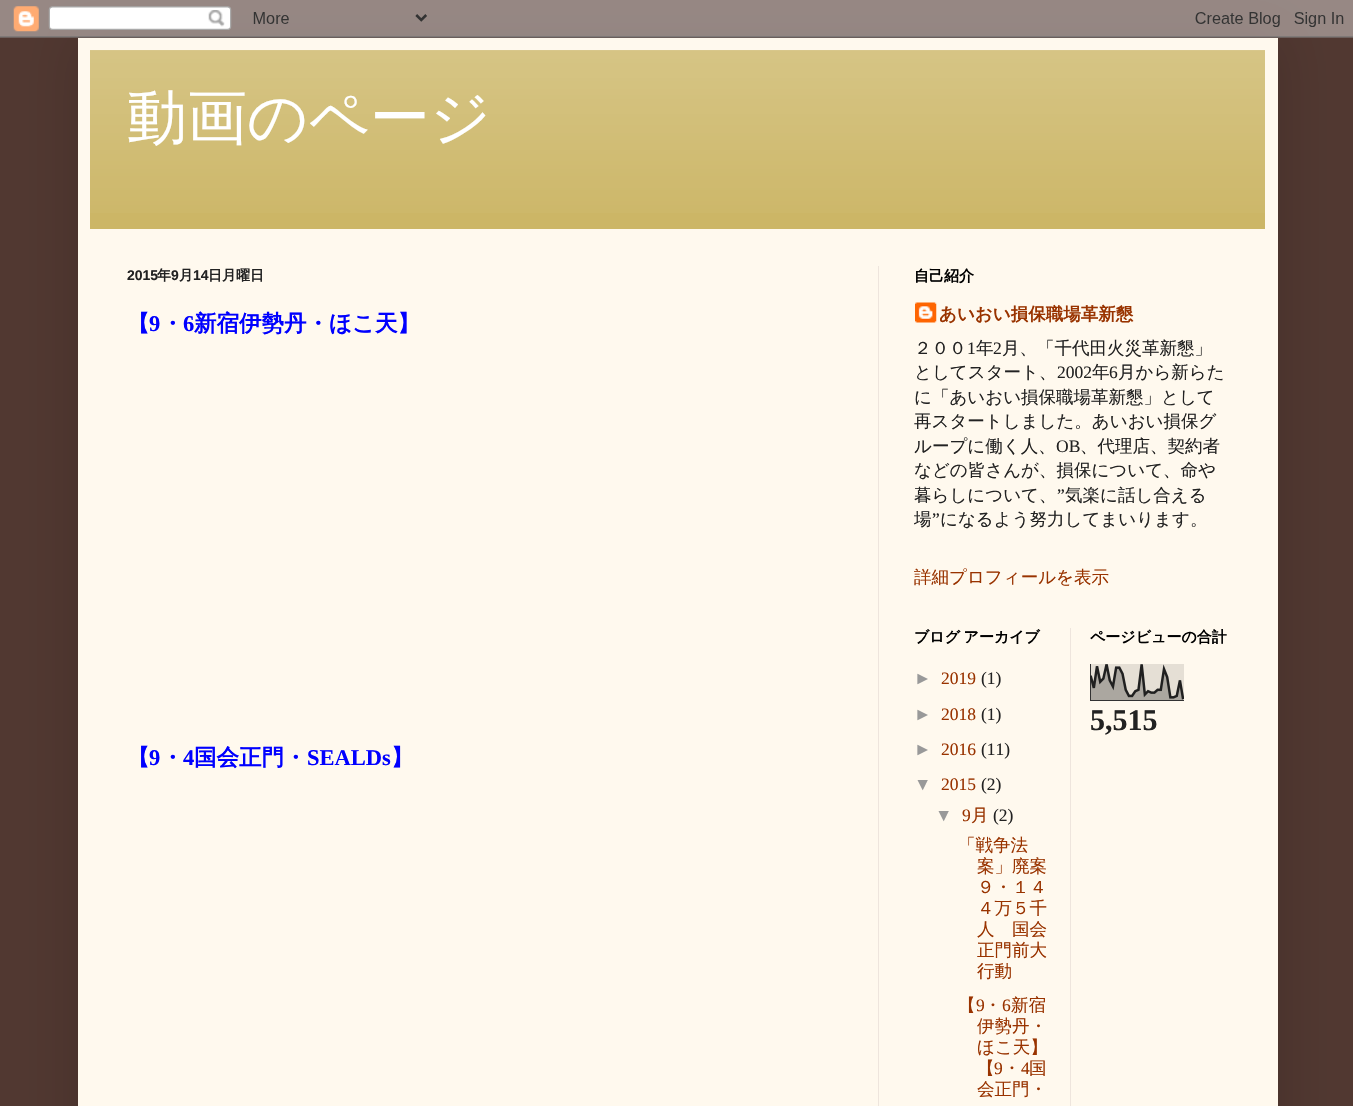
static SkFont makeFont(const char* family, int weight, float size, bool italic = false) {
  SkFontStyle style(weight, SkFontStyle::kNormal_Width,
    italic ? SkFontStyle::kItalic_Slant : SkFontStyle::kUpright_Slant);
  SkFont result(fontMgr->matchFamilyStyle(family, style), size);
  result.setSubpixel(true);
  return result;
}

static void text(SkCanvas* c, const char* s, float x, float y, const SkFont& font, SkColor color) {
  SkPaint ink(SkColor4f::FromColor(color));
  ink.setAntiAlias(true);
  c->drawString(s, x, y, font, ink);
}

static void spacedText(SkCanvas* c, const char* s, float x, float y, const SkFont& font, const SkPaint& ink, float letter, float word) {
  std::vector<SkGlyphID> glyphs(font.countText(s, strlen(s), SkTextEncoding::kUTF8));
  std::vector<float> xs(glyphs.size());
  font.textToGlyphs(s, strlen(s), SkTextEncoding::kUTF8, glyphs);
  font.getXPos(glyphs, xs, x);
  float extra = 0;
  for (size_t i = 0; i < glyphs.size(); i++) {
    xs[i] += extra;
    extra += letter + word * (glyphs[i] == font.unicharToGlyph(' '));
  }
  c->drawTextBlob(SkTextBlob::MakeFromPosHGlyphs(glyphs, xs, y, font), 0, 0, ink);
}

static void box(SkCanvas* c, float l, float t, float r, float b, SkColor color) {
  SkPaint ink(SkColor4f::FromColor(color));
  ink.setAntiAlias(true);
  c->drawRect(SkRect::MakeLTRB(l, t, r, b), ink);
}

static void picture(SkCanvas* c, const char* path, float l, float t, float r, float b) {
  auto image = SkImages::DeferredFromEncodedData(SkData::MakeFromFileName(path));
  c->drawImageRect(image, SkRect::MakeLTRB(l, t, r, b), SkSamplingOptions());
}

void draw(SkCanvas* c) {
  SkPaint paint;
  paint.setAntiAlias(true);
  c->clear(0xff513831);
  paint.setColor(0x26000000);
  paint.setMaskFilter(SkMaskFilter::MakeBlur(kNormal_SkBlurStyle, 25));
  c->drawRect(SkRect::MakeLTRB(78, 38, 1278, 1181), paint);
  paint.setMaskFilter(nullptr);
  picture(c, "img_01.png", 0, 0, 1353, 38);
  box(c, 78, 38, 1278, 1106, 0xfffff9ee);
  box(c, 90, 50, 1265, 229, 0xffccb666);
  picture(c, "img_02.png", 90, 50, 1265, 213);
  SkFont face1 = makeFont("WenQuanYi Zen Hei", 500, 60);
  text(c, "動画のページ", 127, 138, face1, 0xffffffff);
  box(c, 878, 266, 879, 1106, 0xffeee5dd);
  SkFont face2 = makeFont("Liberation Sans", 700, 14);
  text(c, "2015", 127, 280, face2, 0xff222222);
  SkFont face3 = makeFont("WenQuanYi Zen Hei", 700, 14);
  text(c, "年", 157, 280, face3, 0xff222222);
  text(c, "9", 171, 280, face2, 0xff222222);
  text(c, "月", 179, 280, face3, 0xff222222);
  text(c, "14", 193, 280, face2, 0xff222222);
  text(c, "日月曜日", 208, 280, face3, 0xff222222);
  SkFont face4 = makeFont("WenQuanYi Zen Hei", 700, 22.5f);
  text(c, "【", 127, 331, face4, 0xff0000ff);
  SkFont face5 = makeFont("Liberation Serif", 700, 22.5f);
  text(c, "9", 149, 331, face5, 0xff0000ff);
  text(c, "・", 161, 331, face4, 0xff0000ff);
  text(c, "6", 183, 331, face5, 0xff0000ff);
  text(c, "新宿伊勢丹・ほこ天】", 194, 331, face4, 0xff0000ff);
  text(c, "【", 127, 765, face4, 0xff0000ff);
  text(c, "9", 149, 765, face5, 0xff0000ff);
  text(c, "・", 161, 765, face4, 0xff0000ff);
  text(c, "4", 183, 765, face5, 0xff0000ff);
  text(c, "国会正門・", 194, 765, face4, 0xff0000ff);
  text(c, "SEALDs", 307, 765, face5, 0xff0000ff);
  text(c, "】", 391, 765, face4, 0xff0000ff);
  SkFont face6 = makeFont("WenQuanYi Zen Hei", 700, 15);
  text(c, "自己紹介", 914, 281, face6, 0xff000000);
  picture(c, "img_03.png", 915, 302, 937, 323);
  SkFont face7 = makeFont("WenQuanYi Zen Hei", 700, 17.5f);
  text(c, "あいおい損保職場革新懇", 939, 320, face7, 0xff993300);
  SkFont face8 = makeFont("WenQuanYi Zen Hei", 500, 17.5f);
  text(c, "２００", 914, 354, face8, 0xff222222);
  SkFont face9 = makeFont("Liberation Serif", 400, 17.5f);
  text(c, "1", 967, 354, face9, 0xff222222);
  text(c, "年", 976, 354, face8, 0xff222222);
  text(c, "2", 993, 354, face9, 0xff222222);
  text(c, "月、「千代田火災革新懇」", 1002, 354, face8, 0xff222222);
  text(c, "としてスタート、", 914, 378, face8, 0xff222222);
  text(c, "2002", 1057, 378, face9, 0xff222222);
  text(c, "年", 1092, 378, face8, 0xff222222);
  text(c, "6", 1109, 378, face9, 0xff222222);
  text(c, "月から新らた", 1118, 378, face8, 0xff222222);
  text(c, "に「あいおい損保職場革新懇」として", 914, 403, face8, 0xff222222);
  text(c, "再スタートしました。あいおい損保グ", 914, 427, face8, 0xff222222);
  text(c, "ループに働く人、", 914, 452, face8, 0xff222222);
  text(c, "OB", 1056, 452, face9, 0xff222222);
  text(c, "、代理店、契約者", 1080, 452, face8, 0xff222222);
  text(c, "などの皆さんが、損保について、命や", 914, 476, face8, 0xff222222);
  text(c, "暮らしについて、", 914, 501, face8, 0xff222222);
  text(c, "”", 1057, 501, face9, 0xff222222);
  text(c, "気楽に話し合える", 1065, 501, face8, 0xff222222);
  text(c, "場", 914, 525, face8, 0xff222222);
  text(c, "”", 932, 525, face9, 0xff222222);
  text(c, "になるよう努力してまいります。", 940, 525, face8, 0xff222222);
  text(c, "詳細プロフィールを表示", 914, 583, face8, 0xff993300);
  paint.setColor(0xff000000);
  spacedText(c, "ブログ アーカイブ", 914, 642, face6, paint, 0, -1);
  SkFont face10 = makeFont("Liberation Sans", 400, 17.5f);
  text(c, "►", 914, 684, face10, 0xff999999);
  text(c, "2019", 941, 684, face9, 0xff993300);
  text(c, "(1)", 981, 684, face9, 0xff222222);
  text(c, "►", 914, 720, face10, 0xff999999);
  text(c, "2018", 941, 720, face9, 0xff993300);
  text(c, "(1)", 981, 720, face9, 0xff222222);
  text(c, "►", 914, 755, face10, 0xff999999);
  text(c, "2016", 941, 755, face9, 0xff993300);
  text(c, "(11)", 981, 755, face9, 0xff222222);
  text(c, "▼", 914, 790, face10, 0xff999999);
  text(c, "2015", 941, 790, face9, 0xff993300);
  text(c, "(2)", 981, 790, face9, 0xff222222);
  text(c, "▼", 935, 821, face10, 0xff999999);
  text(c, "9", 962, 821, face9, 0xff993300);
  text(c, "月", 971, 821, face8, 0xff993300);
  text(c, "(2)", 993, 821, face9, 0xff222222);
  text(c, "「戦争法", 958, 851, face8, 0xff993300);
  text(c, "案」廃案", 977, 872, face8, 0xff993300);
  text(c, "９・１４", 977, 893, face8, 0xff993300);
  text(c, "４万５千", 977, 914, face8, 0xff993300);
  text(c, "人　国会", 977, 935, face8, 0xff993300);
  text(c, "正門前大", 977, 956, face8, 0xff993300);
  text(c, "行動", 977, 977, face8, 0xff993300);
  text(c, "【", 958, 1011, face8, 0xff993300);
  text(c, "9", 976, 1011, face9, 0xff993300);
  text(c, "・", 984, 1011, face8, 0xff993300);
  text(c, "6", 1002, 1011, face9, 0xff993300);
  text(c, "新宿", 1011, 1011, face8, 0xff993300);
  text(c, "伊勢丹・", 977, 1032, face8, 0xff993300);
  text(c, "ほこ天】", 977, 1053, face8, 0xff993300);
  text(c, "【", 977, 1074, face8, 0xff993300);
  text(c, "9", 994, 1074, face9, 0xff993300);
  text(c, "・", 1003, 1074, face8, 0xff993300);
  text(c, "4", 1021, 1074, face9, 0xff993300);
  text(c, "国", 1029, 1074, face8, 0xff993300);
  text(c, "会正門・", 977, 1095, face8, 0xff993300);
  box(c, 1070, 628, 1071, 1106, 0xffeee5dd);
  text(c, "ページビューの合計", 1090, 642, face6, 0xff000000);
  picture(c, "img_04.png", 1090, 664, 1184, 701);
  SkFont face11 = makeFont("Liberation Serif", 700, 30);
  text(c, "5,515", 1090, 730, face11, 0xff222222);
}
